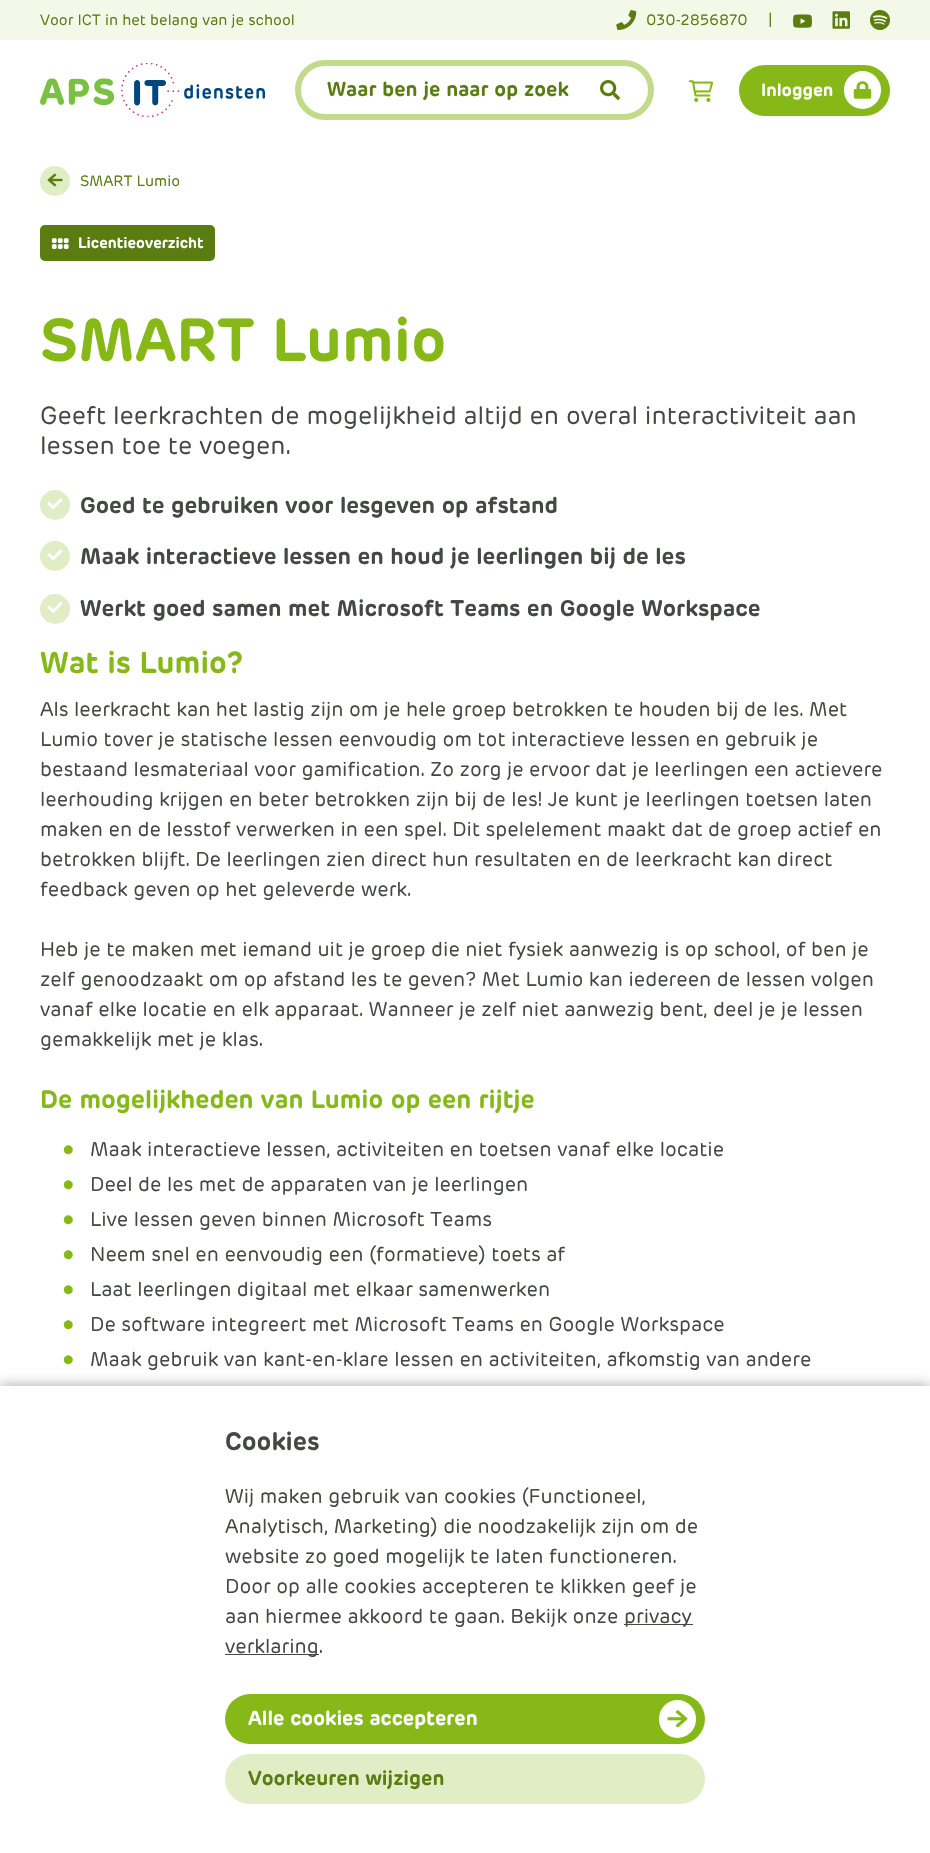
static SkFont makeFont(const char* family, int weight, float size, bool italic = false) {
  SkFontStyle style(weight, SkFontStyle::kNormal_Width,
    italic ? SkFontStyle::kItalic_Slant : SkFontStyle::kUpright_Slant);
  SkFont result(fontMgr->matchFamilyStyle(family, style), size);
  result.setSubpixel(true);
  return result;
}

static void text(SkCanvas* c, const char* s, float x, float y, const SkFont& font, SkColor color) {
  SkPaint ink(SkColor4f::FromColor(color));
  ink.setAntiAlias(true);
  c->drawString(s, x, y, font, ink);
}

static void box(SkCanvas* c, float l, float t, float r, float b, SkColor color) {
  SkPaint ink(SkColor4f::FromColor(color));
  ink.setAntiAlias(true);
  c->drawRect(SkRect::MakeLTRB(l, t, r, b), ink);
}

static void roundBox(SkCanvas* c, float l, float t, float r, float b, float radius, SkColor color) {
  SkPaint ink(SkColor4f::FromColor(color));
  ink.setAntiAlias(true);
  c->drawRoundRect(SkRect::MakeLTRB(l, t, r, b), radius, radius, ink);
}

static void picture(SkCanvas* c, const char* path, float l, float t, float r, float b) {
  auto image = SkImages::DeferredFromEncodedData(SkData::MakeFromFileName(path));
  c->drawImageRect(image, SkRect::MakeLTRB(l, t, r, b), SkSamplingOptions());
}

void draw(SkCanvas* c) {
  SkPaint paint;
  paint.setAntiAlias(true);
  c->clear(0xffffffff);
  box(c, 0, 0, 930, 40, 0xfff3f8e8);
  SkFont face1 = makeFont("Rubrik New", 400, 15);
  text(c, "Voor ICT in het belang van je school", 40, 25, face1, 0xff5a7c10);
  picture(c, "img_01.png", 616, 10, 637, 30);
  text(c, "030-2856870", 646, 25, face1, 0xff5a7c10);
  text(c, "|", 768, 25, face1, 0xff5a7c10);
  picture(c, "img_02.png", 793, 14, 812, 28);
  picture(c, "img_03.png", 832, 11, 850, 29);
  picture(c, "img_04.png", 870, 10, 890, 30);
  picture(c, "img_05.png", 40, 63, 265, 118);
  paint.setStyle(SkPaint::kStroke_Style);
  paint.setStrokeWidth(6);
  paint.setColor(0xffc2db8b);
  c->drawRoundRect(SkRect::MakeLTRB(298, 63, 651, 117), 27, 27, paint);
  SkFont face2 = makeFont("Rubrik New", 700, 20);
  text(c, "Waar ben je naar op zoek", 327, 96, face2, 0xff5a7c10);
  picture(c, "img_06.png", 600, 80, 620, 100);
  picture(c, "img_07.png", 688, 80, 713, 102);
  roundBox(c, 739, 65, 890, 116, 25.5f, 0xff86b918);
  SkFont face3 = makeFont("Rubrik New", 700, 17.5f);
  text(c, "Inloggen", 761, 96, face3, 0xffffffff);
  roundBox(c, 844, 71, 881, 109, 18.5f, 0xffffffff);
  picture(c, "img_08.png", 853, 81, 872, 99);
  paint.setStyle(SkPaint::kFill_Style);
  paint.setColor(0xffe1edc5);
  c->drawCircle(55, 181, 15, paint);
  picture(c, "img_09.png", 47, 173, 63, 187);
  text(c, "SMART Lumio", 80, 186, face1, 0xff5a7c10);
  roundBox(c, 40, 225, 215, 261, 5, 0xff5a7c10);
  picture(c, "img_10.png", 51, 238, 69, 249);
  SkFont face4 = makeFont("Rubrik New", 700, 15);
  text(c, "Licentieoverzicht", 78, 248, face4, 0xffffffff);
  SkFont face5 = makeFont("Rubrik New", 700, 60);
  text(c, "SMART Lumio", 40, 361, face5, 0xff86b918);
  SkFont face6 = makeFont("Rubrik New", 400, 25);
  text(c, "Geeft leerkrachten de mogelijkheid altijd en overal interactiviteit aan", 40, 424, face6, 0xff454942);
  text(c, "lessen toe te voegen.", 40, 454, face6, 0xff454942);
  c->drawCircle(55, 505, 15, paint);
  SkFont face7 = makeFont("Rubrik New", 700, 22.5f);
  text(c, "Goed te gebruiken voor lesgeven op afstand", 80, 513, face7, 0xff454942);
  picture(c, "img_11.png", 47, 498, 63, 510);
  c->drawCircle(55, 556, 15, paint);
  text(c, "Maak interactieve lessen en houd je leerlingen bij de les", 80, 564, face7, 0xff454942);
  picture(c, "img_12.png", 47, 549, 63, 561);
  c->drawCircle(55, 609, 15, paint);
  text(c, "Werkt goed samen met Microsoft Teams en Google Workspace", 80, 616, face7, 0xff454942);
  picture(c, "img_13.png", 47, 602, 63, 613);
  SkFont face8 = makeFont("Rubrik New", 700, 30);
  text(c, "Wat is Lumio?", 40, 673, face8, 0xff86b918);
  SkFont face9 = makeFont("Rubrik New", 400, 20);
  text(c, "Als leerkracht kan het lastig zijn om je hele groep betrokken te houden bij de les. Met", 40, 716, face9, 0xff454942);
  text(c, "Lumio tover je statische lessen eenvoudig om tot interactieve lessen en gebruik je", 40, 746, face9, 0xff454942);
  text(c, "bestaand lesmateriaal voor gamification. Zo zorg je ervoor dat je leerlingen een actievere", 40, 776, face9, 0xff454942);
  text(c, "leerhouding krijgen en beter betrokken zijn bij de les! Je kunt je leerlingen toetsen laten", 40, 806, face9, 0xff454942);
  text(c, "maken en de lesstof verwerken in een spel. Dit spelelement maakt dat de groep actief en", 40, 836, face9, 0xff454942);
  text(c, "betrokken blijft. De leerlingen zien direct hun resultaten en de leerkracht kan direct", 40, 866, face9, 0xff454942);
  text(c, "feedback geven op het geleverde werk.", 40, 896, face9, 0xff454942);
  text(c, "Heb je te maken met iemand uit je groep die niet fysiek aanwezig is op school, of ben je", 40, 956, face9, 0xff454942);
  text(c, "zelf genoodzaakt om op afstand les te geven? Met Lumio kan iedereen de lessen volgen", 40, 986, face9, 0xff454942);
  text(c, "vanaf elke locatie en elk apparaat. Wanneer je zelf niet aanwezig bent, deel je je lessen", 40, 1016, face9, 0xff454942);
  text(c, "gemakkelijk met je klas.", 40, 1046, face9, 0xff454942);
  SkFont face10 = makeFont("Rubrik New", 700, 25);
  text(c, "De mogelijkheden van Lumio op een rijtje", 40, 1108, face10, 0xff86b918);
  SkFont face11 = makeFont("Rubrik New", 700, 35);
  text(c, "•", 60, 1162, face11, 0xff86b918);
  text(c, "Maak interactieve lessen, activiteiten en toetsen vanaf elke locatie", 90, 1156, face9, 0xff454942);
  text(c, "•", 60, 1197, face11, 0xff86b918);
  text(c, "Deel de les met de apparaten van je leerlingen", 90, 1191, face9, 0xff454942);
  text(c, "•", 60, 1232, face11, 0xff86b918);
  text(c, "Live lessen geven binnen Microsoft Teams", 90, 1226, face9, 0xff454942);
  text(c, "•", 60, 1267, face11, 0xff86b918);
  text(c, "Neem snel en eenvoudig een (formatieve) toets af", 90, 1261, face9, 0xff454942);
  text(c, "•", 60, 1302, face11, 0xff86b918);
  text(c, "Laat leerlingen digitaal met elkaar samenwerken", 90, 1296, face9, 0xff454942);
  text(c, "•", 60, 1337, face11, 0xff86b918);
  text(c, "De software integreert met Microsoft Teams en Google Workspace", 90, 1331, face9, 0xff454942);
  text(c, "•", 60, 1372, face11, 0xff86b918);
  text(c, "Maak gebruik van kant-en-klare lessen en activiteiten, afkomstig van andere", 90, 1366, face9, 0xff454942);
  paint.setColor(0x47000000);
  paint.setMaskFilter(SkMaskFilter::MakeBlur(kNormal_SkBlurStyle, 5.5f));
  c->drawRect(SkRect::MakeLTRB(0, 1384, 930, 1851), paint);
  paint.setMaskFilter(nullptr);
  box(c, 0, 1386, 930, 1853, 0xffffffff);
  text(c, "Cookies", 225, 1450, face10, 0xff454942);
  text(c, "Wij maken gebruik van cookies (Functioneel,", 225, 1503, face9, 0xff454942);
  text(c, "Analytisch, Marketing) die noodzakelijk zijn om de", 225, 1533, face9, 0xff454942);
  text(c, "website zo goed mogelijk te laten functioneren.", 225, 1563, face9, 0xff454942);
  text(c, "Door op alle cookies accepteren te klikken geef je", 225, 1593, face9, 0xff454942);
  text(c, "aan hiermee akkoord te gaan. Bekijk onze", 225, 1623, face9, 0xff454942);
  box(c, 624, 1624, 693, 1625, 0xff454942);
  text(c, "privacy", 624, 1623, face9, 0xff454942);
  box(c, 225, 1654, 319, 1655, 0xff454942);
  text(c, "verklaring.", 225, 1653, face9, 0xff454942);
  roundBox(c, 225, 1694, 705, 1744, 25, 0xff86b918);
  text(c, "Alle cookies accepteren", 248, 1725, face2, 0xffffffff);
  roundBox(c, 659, 1700, 696, 1738, 18.5f, 0xffffffff);
  picture(c, "img_14.png", 667, 1710, 688, 1728);
  roundBox(c, 225, 1754, 705, 1804, 25, 0xffe1edc5);
  text(c, "Voorkeuren wijzigen", 248, 1785, face2, 0xff5a7c10);
}
